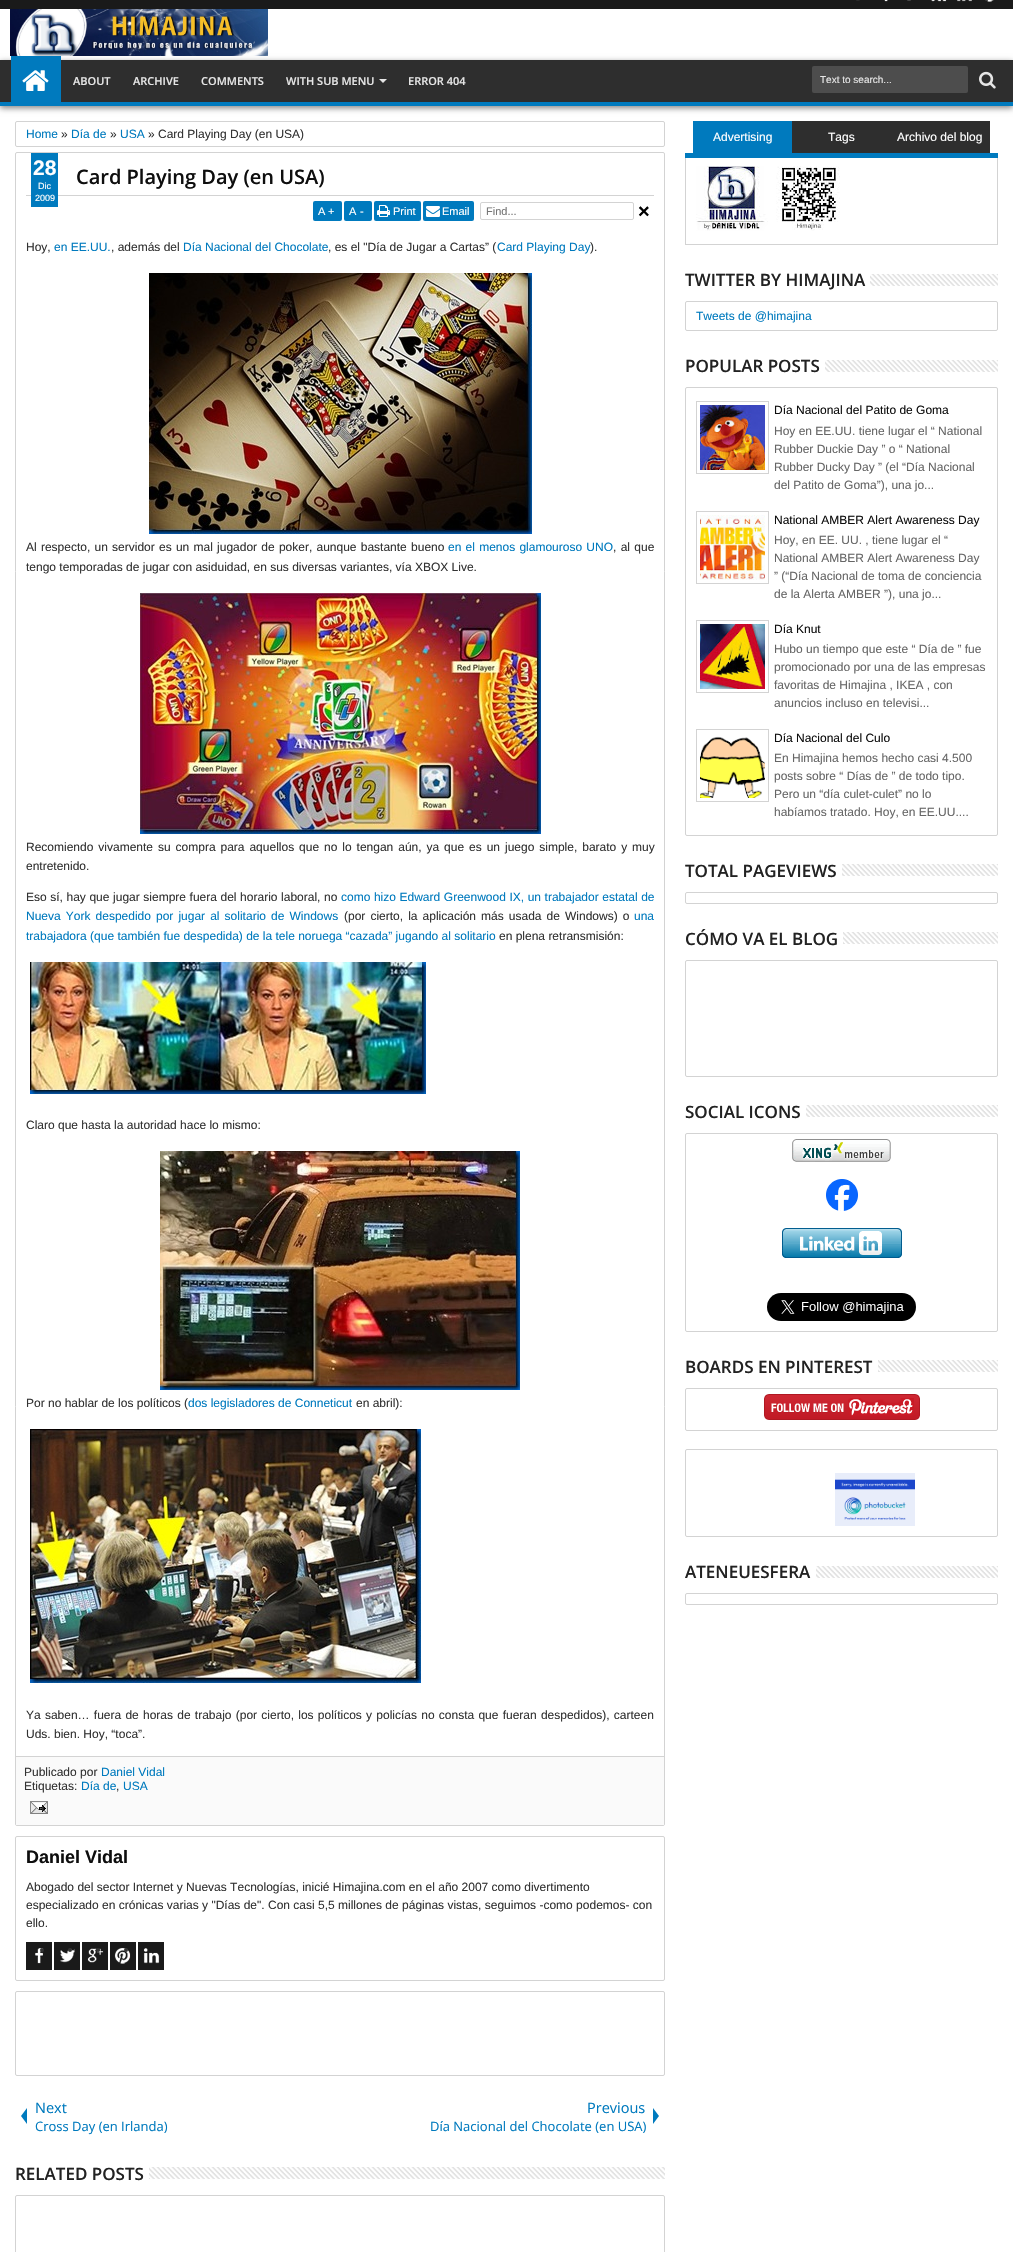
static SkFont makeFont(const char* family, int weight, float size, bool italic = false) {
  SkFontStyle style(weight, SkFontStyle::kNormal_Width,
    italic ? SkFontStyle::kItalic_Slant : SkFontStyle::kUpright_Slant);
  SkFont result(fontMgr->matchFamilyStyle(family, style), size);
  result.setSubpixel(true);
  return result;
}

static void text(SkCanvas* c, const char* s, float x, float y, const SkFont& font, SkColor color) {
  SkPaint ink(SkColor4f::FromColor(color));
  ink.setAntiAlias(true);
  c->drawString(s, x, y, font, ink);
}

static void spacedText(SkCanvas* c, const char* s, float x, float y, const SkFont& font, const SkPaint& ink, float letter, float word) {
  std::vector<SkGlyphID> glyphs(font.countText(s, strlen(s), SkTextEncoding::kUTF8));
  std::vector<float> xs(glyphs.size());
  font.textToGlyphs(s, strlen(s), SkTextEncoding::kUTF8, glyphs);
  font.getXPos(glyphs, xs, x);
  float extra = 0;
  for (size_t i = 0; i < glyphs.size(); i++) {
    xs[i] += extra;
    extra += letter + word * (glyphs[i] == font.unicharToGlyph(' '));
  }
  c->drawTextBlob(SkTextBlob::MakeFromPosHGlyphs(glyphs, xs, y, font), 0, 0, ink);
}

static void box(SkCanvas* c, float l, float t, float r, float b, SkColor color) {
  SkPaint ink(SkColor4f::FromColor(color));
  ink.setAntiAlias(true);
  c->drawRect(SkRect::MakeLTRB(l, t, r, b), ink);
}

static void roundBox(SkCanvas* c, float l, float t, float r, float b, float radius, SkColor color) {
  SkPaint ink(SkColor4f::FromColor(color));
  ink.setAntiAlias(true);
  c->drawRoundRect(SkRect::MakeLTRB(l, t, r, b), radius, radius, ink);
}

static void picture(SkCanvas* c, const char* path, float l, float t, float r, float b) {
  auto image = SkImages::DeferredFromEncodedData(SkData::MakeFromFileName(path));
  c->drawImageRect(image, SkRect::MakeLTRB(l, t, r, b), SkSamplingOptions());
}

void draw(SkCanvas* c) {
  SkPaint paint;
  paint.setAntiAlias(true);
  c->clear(0xffffffff);
  box(c, 0, 0, 1013, 9, 0xff1a1a1a);
  picture(c, "img_01.png", 856, 0, 860, 1);
  picture(c, "img_02.png", 884, 0, 888, 2);
  picture(c, "img_03.png", 907, 0, 911, 1);
  picture(c, "img_04.png", 931, 0, 947, 2);
  picture(c, "img_05.png", 957, 0, 972, 2);
  picture(c, "img_06.png", 985, 0, 994, 2);
  picture(c, "img_07.png", 10, 9, 268, 56);
  paint.setColor(0x7d000000);
  paint.setMaskFilter(SkMaskFilter::MakeBlur(kNormal_SkBlurStyle, 3));
  c->drawRect(SkRect::MakeLTRB(0, 62, 1013, 108), paint);
  paint.setMaskFilter(nullptr);
  box(c, 0, 60, 1013, 102, 0xff2e2e2e);
  box(c, 0, 102, 1013, 106, 0xff007abe);
  box(c, 11, 56, 61, 102, 0xff007abe);
  picture(c, "img_08.png", 22, 70, 49, 91);
  SkFont face1 = makeFont("Open Sans", 600, 11);
  text(c, "ABOUT", 73, 85, face1, 0xffe6e6e6);
  text(c, "ARCHIVE", 133, 85, face1, 0xffe6e6e6);
  text(c, "COMMENTS", 201, 85, face1, 0xffe6e6e6);
  text(c, "WITH SUB MENU", 286, 85, face1, 0xffe6e6e6);
  paint.setColor(0xffe6e6e6);
  c->drawPath(SkPathBuilder().moveTo(379, 79).lineTo(387, 79).lineTo(383, 83).close().detach(), paint);
  text(c, "ERROR 404", 408, 85, face1, 0xffe6e6e6);
  roundBox(c, 812, 66, 968, 93, 2, 0xff4d4d4d);
  SkFont face2 = makeFont("Liberation Sans", 400, 10);
  text(c, "Text to search...", 820, 83, face2, 0xffe6e6e6);
  picture(c, "img_09.png", 979, 71, 996, 89);
  paint.setStyle(SkPaint::kStroke_Style);
  paint.setStrokeWidth(1);
  paint.setColor(0xffd3d3d3);
  c->drawRoundRect(SkRect::MakeLTRB(15.5f, 121.5f, 664.5f, 146.5f), 1.5f, 1.5f, paint);
  SkFont face3 = makeFont("Liberation Sans", 400, 12);
  text(c, "Home", 26, 138, face3, 0xff007abe);
  text(c, "»", 61, 138, face3, 0xff333333);
  text(c, "Día de", 71, 138, face3, 0xff007abe);
  text(c, "»", 110, 138, face3, 0xff333333);
  text(c, "USA", 120, 138, face3, 0xff007abe);
  text(c, "» Card Playing Day (en USA)", 148, 138, face3, 0xff333333);
  c->drawRoundRect(SkRect::MakeLTRB(15.5f, 152.5f, 664.5f, 1825.5f), 1.5f, 1.5f, paint);
  box(c, 26, 195, 654, 196, 0xffd3d3d3);
  box(c, 31, 153, 58, 207, 0xff007abe);
  SkFont face4 = makeFont("Liberation Sans", 700, 21);
  text(c, "28", 33, 175, face4, 0xffffffff);
  SkFont face5 = makeFont("Liberation Sans", 400, 9);
  text(c, "Dic", 38, 189, face5, 0xffffffff);
  text(c, "2009", 35, 201, face5, 0xffffffff);
  SkFont face6 = makeFont("Open Sans", 600, 20);
  text(c, "Card Playing Day (en USA)", 76, 184, face6, 0xff0e0e0e);
  roundBox(c, 313, 201, 342, 221, 2, 0xff007abe);
  SkFont face7 = makeFont("Liberation Sans", 400, 11);
  text(c, "A", 318, 215, face7, 0xffffffff);
  text(c, "+", 328, 215, face7, 0xffffffff);
  roundBox(c, 344, 201, 372, 221, 2, 0xff007abe);
  text(c, "A", 349, 215, face7, 0xffffffff);
  text(c, "-", 360, 215, face7, 0xffffffff);
  roundBox(c, 374, 201, 421, 221, 2, 0xff007abe);
  picture(c, "img_10.png", 377, 205, 390, 217);
  text(c, "Print", 393, 215, face7, 0xffffffff);
  roundBox(c, 423, 201, 474, 221, 2, 0xff007abe);
  picture(c, "img_11.png", 426, 206, 440, 217);
  text(c, "Email", 442, 215, face7, 0xffffffff);
  c->drawRoundRect(SkRect::MakeLTRB(480.5f, 202.5f, 633.5f, 219.5f), 1.5f, 1.5f, paint);
  text(c, "Find...", 486, 215, face7, 0xff757575);
  SkFont face8 = makeFont("Liberation Sans", 700, 20);
  text(c, "×", 638, 218, face8, 0xff000000);
  text(c, "Hoy,", 26, 251, face3, 0xff333333);
  text(c, "en EE.UU.", 54, 251, face3, 0xff007abe);
  text(c, ", además del", 111, 251, face3, 0xff333333);
  text(c, "Día Nacional del Chocolate", 183, 251, face3, 0xff007abe);
  text(c, ", es el \"Día de Jugar a Cartas” (", 328, 251, face3, 0xff333333);
  text(c, "Card Playing Day", 497, 251, face3, 0xff007abe);
  text(c, ").", 590, 251, face3, 0xff333333);
  picture(c, "img_12.png", 149, 273, 532, 534);
  paint.setStyle(SkPaint::kFill_Style);
  paint.setColor(0xff333333);
  spacedText(c, "Al respecto, un servidor es un mal jugador de poker, aunque bastante bueno", 26, 551, face3, paint, 0, 0.9f);
  paint.setColor(0xff007abe);
  spacedText(c, "en el menos glamouroso UNO", 448, 551, face3, paint, 0, 0.9f);
  paint.setColor(0xff333333);
  spacedText(c, ", al que", 613, 551, face3, paint, 0, 1);
  text(c, "tengo temporadas de jugar con asiduidad, en sus diversas variantes, vía XBOX Live.", 26, 571, face3, 0xff333333);
  picture(c, "img_13.png", 140, 593, 541, 834);
  spacedText(c, "Recomiendo vivamente su compra para aquellos que no lo tengan aún, ya que es un juego simple, barato y muy", 26, 851, face3, paint, 0, 1.6f);
  text(c, "entretenido.", 26, 870, face3, 0xff333333);
  spacedText(c, "Eso sí, hay que jugar siempre fuera del horario laboral, no", 26, 901, face3, paint, 0, 0.25f);
  paint.setColor(0xff007abe);
  spacedText(c, "como hizo Edward Greenwood IX, un trabajador estatal de", 341, 901, face3, paint, 0, 0.25f);
  spacedText(c, "Nueva York despedido por jugar al solitario de Windows", 26, 920, face3, paint, 0, 1.75f);
  paint.setColor(0xff333333);
  spacedText(c, "(por cierto, la aplicación más usada de Windows) o", 344, 920, face3, paint, 0, 1.75f);
  text(c, "una", 634, 920, face3, 0xff007abe);
  text(c, "trabajadora (que también fue despedida) de la tele noruega “cazada” jugando al solitario", 26, 940, face3, 0xff007abe);
  text(c, "en plena retransmisión:", 499, 940, face3, 0xff333333);
  picture(c, "img_14.png", 30, 962, 426, 1094);
  text(c, "Claro que hasta la autoridad hace lo mismo:", 26, 1129, face3, 0xff333333);
  picture(c, "img_15.png", 160, 1151, 520, 1390);
  text(c, "Por no hablar de los políticos (", 26, 1407, face3, 0xff333333);
  text(c, "dos legisladores de Conneticut", 188, 1407, face3, 0xff007abe);
  text(c, "en abril):", 356, 1407, face3, 0xff333333);
  picture(c, "img_16.png", 30, 1429, 421, 1683);
  spacedText(c, "Ya saben… fuera de horas de trabajo (por cierto, los políticos y policías no consta que fueran despedidos), carteen", 26, 1719, face3, paint, 0, 0.9f);
  text(c, "Uds. bien. Hoy, “toca”.", 26, 1738, face3, 0xff333333);
  box(c, 16, 1757, 664, 1825, 0xfffafafa);
  box(c, 16, 1756, 664, 1757, 0xffd3d3d3);
  text(c, "Publicado por", 24, 1776, face3, 0xff333333);
  text(c, "Daniel Vidal", 101, 1776, face3, 0xff007abe);
  text(c, "Etiquetas:", 24, 1790, face3, 0xff333333);
  text(c, "Día de", 81, 1790, face3, 0xff007abe);
  text(c, ",", 116, 1790, face3, 0xff333333);
  text(c, "USA", 123, 1790, face3, 0xff007abe);
  picture(c, "img_17.png", 30, 1801, 48, 1814);
  paint.setStyle(SkPaint::kStroke_Style);
  paint.setColor(0xffd3d3d3);
  c->drawRoundRect(SkRect::MakeLTRB(15.5f, 1836.5f, 664.5f, 1980.5f), 1.5f, 1.5f, paint);
  SkFont face9 = makeFont("Liberation Sans", 700, 18);
  text(c, "Daniel Vidal", 26, 1863, face9, 0xff0e0e0e);
  text(c, "Abogado del sector Internet y Nuevas Tecnologías, inicié Himajina.com en el año 2007 como divertimento", 26, 1891, face3, 0xff333333);
  text(c, "especializado en crónicas varias y \"Días de\". Con casi 5,5 millones de páginas vistas, seguimos -como podemos- con", 26, 1909, face3, 0xff333333);
  text(c, "ello.", 26, 1927, face3, 0xff333333);
  box(c, 26, 1942, 52, 1970, 0xff1a1a1a);
  picture(c, "img_18.png", 35, 1948, 43, 1964);
  paint.setStyle(SkPaint::kFill_Style);
  paint.setColor(0xff333333);
  c->drawCircle(42, 1950, 2, paint);
  box(c, 54, 1942, 80, 1970, 0xff1a1a1a);
  picture(c, "img_19.png", 60, 1948, 75, 1963);
  c->drawCircle(70, 1950, 2, paint);
  box(c, 82, 1942, 108, 1970, 0xff1a1a1a);
  picture(c, "img_20.png", 87, 1948, 104, 1963);
  c->drawCircle(98, 1950, 2, paint);
  box(c, 110, 1942, 136, 1970, 0xff1a1a1a);
  picture(c, "img_21.png", 114, 1948, 131, 1964);
  c->drawCircle(126, 1950, 2, paint);
  box(c, 138, 1942, 164, 1970, 0xff1a1a1a);
  picture(c, "img_22.png", 143, 1948, 160, 1964);
  paint.setStyle(SkPaint::kStroke_Style);
  paint.setColor(0xffd3d3d3);
  c->drawRoundRect(SkRect::MakeLTRB(15.5f, 1991.5f, 664.5f, 2075.5f), 1.5f, 1.5f, paint);
  paint.setStyle(SkPaint::kFill_Style);
  paint.setColor(0xff007abe);
  c->drawPath(SkPathBuilder().moveTo(27, 2108).lineTo(27, 2124).lineTo(21, 2116).close().detach(), paint);
  SkFont face10 = makeFont("Open Sans", 400, 14.5f);
  text(c, "Next", 35, 2113, face10, 0xff007abe);
  SkFont face11 = makeFont("Open Sans", 400, 13);
  text(c, "Cross Day (en Irlanda)", 35, 2131, face11, 0xff007abe);
  text(c, "Previous", 587, 2113, face10, 0xff007abe);
  c->drawPath(SkPathBuilder().moveTo(653, 2124).lineTo(653, 2108).lineTo(659, 2116).close().detach(), paint);
  text(c, "Día Nacional del Chocolate (en USA)", 430, 2131, face11, 0xff007abe);
  picture(c, "img_23.png", 149, 2167, 665, 2179);
  SkFont face12 = makeFont("Open Sans", 600, 17);
  text(c, "RELATED POSTS", 15, 2180, face12, 0xff222222);
  paint.setStyle(SkPaint::kStroke_Style);
  paint.setColor(0xffd3d3d3);
  c->drawRoundRect(SkRect::MakeLTRB(15.5f, 2195.5f, 664.5f, 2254.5f), 1.5f, 1.5f, paint);
  box(c, 685, 153, 998, 158, 0xff007abe);
  box(c, 693, 121, 792, 153, 0xff007abe);
  text(c, "Advertising", 713, 141, face3, 0xffffffff);
  box(c, 792, 121, 990, 153, 0xff2e2e2e);
  text(c, "Tags", 828, 141, face3, 0xffffffff);
  text(c, "Archivo del blog", 897, 141, face3, 0xffffffff);
  box(c, 997, 158, 998, 245, 0xffd3d3d3);
  box(c, 685, 244, 998, 245, 0xffd3d3d3);
  box(c, 685, 158, 686, 245, 0xffd3d3d3);
  picture(c, "img_24.png", 696, 166, 840, 231);
  picture(c, "img_25.png", 870, 274, 998, 286);
  text(c, "TWITTER BY HIMAJINA", 685, 286, face12, 0xff222222);
  c->drawRoundRect(SkRect::MakeLTRB(685.5f, 301.5f, 997.5f, 330.5f), 1.5f, 1.5f, paint);
  text(c, "Tweets de @himajina", 696, 320, face3, 0xff007abe);
  picture(c, "img_26.png", 825, 360, 998, 372);
  text(c, "POPULAR POSTS", 685, 372, face12, 0xff222222);
  c->drawRoundRect(SkRect::MakeLTRB(685.5f, 387.5f, 997.5f, 835.5f), 1.5f, 1.5f, paint);
  c->drawRect(SkRect::MakeLTRB(696.5f, 401.5f, 768.5f, 473.5f), paint);
  picture(c, "img_27.png", 700, 405, 765, 470);
  text(c, "Día Nacional del Patito de Goma", 774, 414, face3, 0xff0e0e0e);
  text(c, "Hoy en EE.UU. tiene lugar el “ National", 774, 435, face3, 0xff666666);
  text(c, "Rubber Duckie Day ” o “ National", 774, 453, face3, 0xff666666);
  text(c, "Rubber Ducky Day ” (el “Día Nacional", 774, 471, face3, 0xff666666);
  text(c, "del Patito de Goma”), una jo...", 774, 489, face3, 0xff666666);
  c->drawRect(SkRect::MakeLTRB(696.5f, 511.5f, 768.5f, 583.5f), paint);
  picture(c, "img_28.png", 700, 515, 765, 580);
  text(c, "National AMBER Alert Awareness Day", 774, 524, face3, 0xff0e0e0e);
  text(c, "Hoy, en EE. UU. , tiene lugar el “", 774, 544, face3, 0xff666666);
  text(c, "National AMBER Alert Awareness Day", 774, 562, face3, 0xff666666);
  text(c, "” (“Día Nacional de toma de conciencia", 774, 580, face3, 0xff666666);
  text(c, "de la Alerta AMBER ”), una jo...", 774, 598, face3, 0xff666666);
  c->drawRect(SkRect::MakeLTRB(696.5f, 620.5f, 768.5f, 692.5f), paint);
  picture(c, "img_29.png", 700, 624, 765, 689);
  text(c, "Día Knut", 774, 633, face3, 0xff0e0e0e);
  text(c, "Hubo un tiempo que este “ Día de ” fue", 774, 653, face3, 0xff666666);
  text(c, "promocionado por una de las empresas", 774, 671, face3, 0xff666666);
  text(c, "favoritas de Himajina , IKEA , con", 774, 689, face3, 0xff666666);
  text(c, "anuncios incluso en televisi...", 774, 707, face3, 0xff666666);
  c->drawRect(SkRect::MakeLTRB(696.5f, 729.5f, 768.5f, 801.5f), paint);
  picture(c, "img_30.png", 700, 736, 765, 798);
  text(c, "Día Nacional del Culo", 774, 742, face3, 0xff0e0e0e);
  text(c, "En Himajina hemos hecho casi 4.500", 774, 762, face3, 0xff666666);
  text(c, "posts sobre “ Días de ” de todo tipo.", 774, 780, face3, 0xff666666);
  text(c, "Pero un “día culet-culet” no lo", 774, 798, face3, 0xff666666);
  text(c, "habíamos tratado. Hoy, en EE.UU....", 774, 816, face3, 0xff666666);
  picture(c, "img_31.png", 842, 864, 998, 876);
  text(c, "TOTAL PAGEVIEWS", 685, 877, face12, 0xff222222);
  c->drawRoundRect(SkRect::MakeLTRB(685.5f, 892.5f, 997.5f, 903.5f), 1.5f, 1.5f, paint);
  picture(c, "img_32.png", 843, 932, 998, 944);
  text(c, "CÓMO VA EL BLOG", 685, 945, face12, 0xff222222);
  c->drawRoundRect(SkRect::MakeLTRB(685.5f, 960.5f, 997.5f, 1076.5f), 1.5f, 1.5f, paint);
  picture(c, "img_33.png", 806, 1105, 998, 1117);
  text(c, "SOCIAL ICONS", 685, 1118, face12, 0xff222222);
  c->drawRoundRect(SkRect::MakeLTRB(685.5f, 1133.5f, 997.5f, 1331.5f), 1.5f, 1.5f, paint);
  picture(c, "img_34.png", 792, 1139, 891, 1162);
  picture(c, "img_35.png", 826, 1179, 858, 1211);
  picture(c, "img_36.png", 782, 1228, 902, 1258);
  picture(c, "img_37.png", 767, 1293, 916, 1321);
  picture(c, "img_38.png", 878, 1360, 998, 1372);
  text(c, "BOARDS EN PINTEREST", 685, 1373, face12, 0xff222222);
  c->drawRoundRect(SkRect::MakeLTRB(685.5f, 1388.5f, 997.5f, 1430.5f), 1.5f, 1.5f, paint);
  picture(c, "img_39.png", 764, 1394, 920, 1420);
  c->drawRoundRect(SkRect::MakeLTRB(685.5f, 1449.5f, 997.5f, 1536.5f), 1.5f, 1.5f, paint);
  picture(c, "img_40.png", 835, 1473, 915, 1526);
  picture(c, "img_41.png", 816, 1566, 998, 1578);
  text(c, "ATENEUESFERA", 685, 1578, face12, 0xff222222);
  c->drawRoundRect(SkRect::MakeLTRB(685.5f, 1593.5f, 997.5f, 1604.5f), 1.5f, 1.5f, paint);
}
